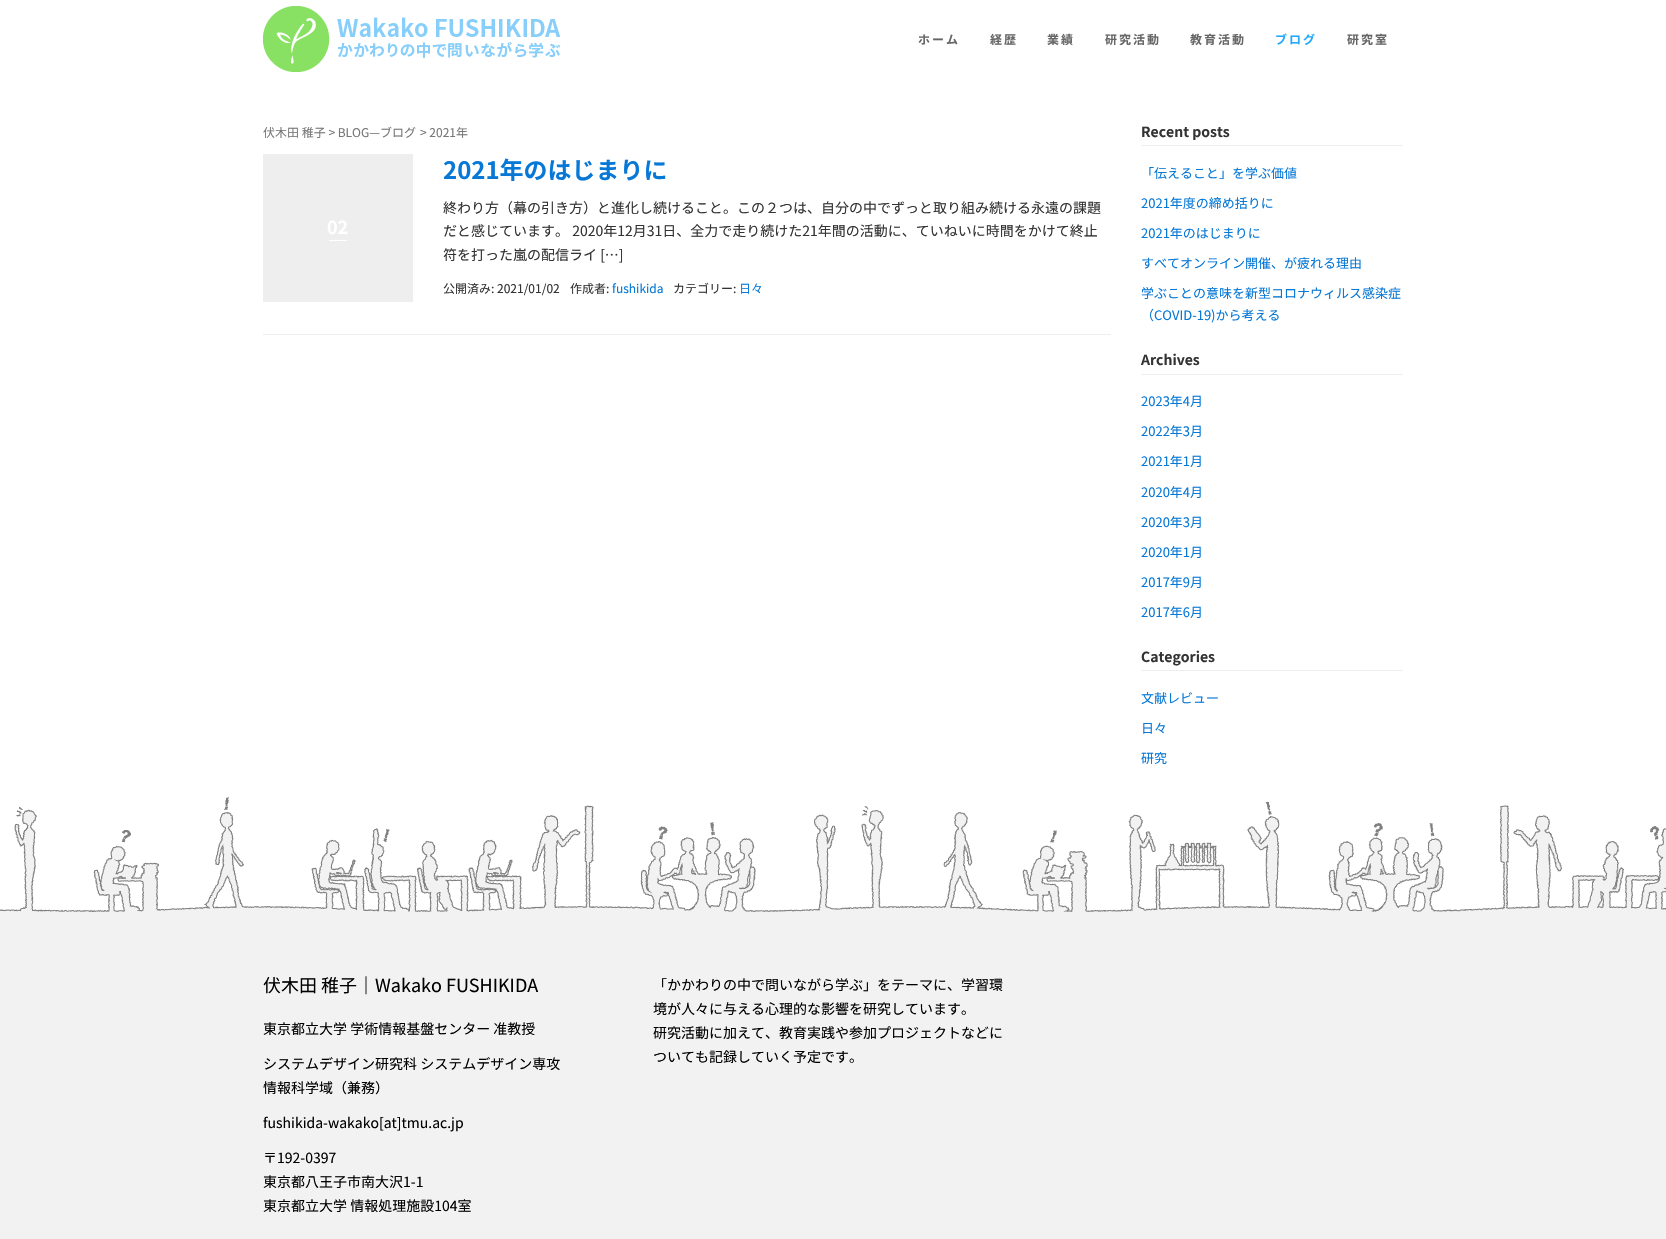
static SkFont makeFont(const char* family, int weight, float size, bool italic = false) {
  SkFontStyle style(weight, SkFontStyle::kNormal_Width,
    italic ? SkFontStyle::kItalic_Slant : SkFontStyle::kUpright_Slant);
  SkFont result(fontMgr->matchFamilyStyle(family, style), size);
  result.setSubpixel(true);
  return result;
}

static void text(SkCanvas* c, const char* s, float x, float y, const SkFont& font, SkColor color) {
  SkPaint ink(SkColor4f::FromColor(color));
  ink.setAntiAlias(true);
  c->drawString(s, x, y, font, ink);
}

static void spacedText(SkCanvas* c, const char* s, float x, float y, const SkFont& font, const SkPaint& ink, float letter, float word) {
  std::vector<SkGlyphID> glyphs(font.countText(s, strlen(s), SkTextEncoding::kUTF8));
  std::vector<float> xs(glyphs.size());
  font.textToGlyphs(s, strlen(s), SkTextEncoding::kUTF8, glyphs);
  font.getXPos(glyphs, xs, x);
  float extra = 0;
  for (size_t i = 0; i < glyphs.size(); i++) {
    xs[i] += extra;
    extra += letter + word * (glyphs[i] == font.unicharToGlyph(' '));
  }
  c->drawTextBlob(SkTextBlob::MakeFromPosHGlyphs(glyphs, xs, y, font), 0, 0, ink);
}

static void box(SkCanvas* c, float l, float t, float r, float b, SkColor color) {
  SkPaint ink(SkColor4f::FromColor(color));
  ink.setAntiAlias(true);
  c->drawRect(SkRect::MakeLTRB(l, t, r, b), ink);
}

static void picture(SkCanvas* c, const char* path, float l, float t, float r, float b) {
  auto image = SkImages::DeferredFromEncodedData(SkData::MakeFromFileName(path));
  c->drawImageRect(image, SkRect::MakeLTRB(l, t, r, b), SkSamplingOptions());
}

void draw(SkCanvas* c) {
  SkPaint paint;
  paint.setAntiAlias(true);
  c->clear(0xffffffff);
  picture(c, "img_01.png", 263, 6, 561, 72);
  SkFont face1 = makeFont("Noto Sans JP", 700, 12);
  paint.setColor(0xff666666);
  spacedText(c, "ホーム", 918, 44, face1, paint, 2, 0);
  spacedText(c, "経歴", 990, 44, face1, paint, 2, 0);
  spacedText(c, "業績", 1047, 44, face1, paint, 2, 0);
  spacedText(c, "研究活動", 1105, 44, face1, paint, 2, 0);
  spacedText(c, "教育活動", 1190, 44, face1, paint, 2, 0);
  paint.setColor(0xff25a8f9);
  spacedText(c, "ブログ", 1275, 44, face1, paint, 2, 0);
  paint.setColor(0xff666666);
  spacedText(c, "研究室", 1347, 44, face1, paint, 2, 0);
  SkFont face2 = makeFont("Noto Sans JP", 400, 12);
  text(c, "伏木田 稚子 > BLOG—ブログ", 263, 137, face2, 0xff777777);
  text(c, "> 2021年", 420, 137, face2, 0xff777777);
  box(c, 263, 334, 1111, 335, 0xffeeeeee);
  box(c, 263, 154, 413, 302, 0xffeeeeee);
  SkFont face3 = makeFont("Noto Sans JP", 700, 18);
  text(c, "02", 327, 234, face3, 0xffffffff);
  box(c, 329, 240, 347, 241, 0xffffffff);
  SkFont face4 = makeFont("Noto Sans JP", 700, 24);
  text(c, "2021年のはじまりに", 443, 179, face4, 0xff0778d6);
  SkFont face5 = makeFont("Noto Sans JP", 400, 14);
  text(c, "終わり方（幕の引き方）と進化し続けること。この２つは、自分の中でずっと取り組み続ける永遠の課題", 443, 213, face5, 0xff333333);
  text(c, "だと感じています。 2020年12月31日、全力で走り続けた21年間の活動に、ていねいに時間をかけて終止", 443, 236, face5, 0xff333333);
  text(c, "符を打った嵐の配信ライ […]", 443, 260, face5, 0xff333333);
  text(c, "公開済み: 2021/01/02", 443, 293, face2, 0xff333333);
  text(c, "作成者:", 570, 293, face2, 0xff333333);
  text(c, "fushikida", 612, 293, face2, 0xff0778d6);
  text(c, "カテゴリー:", 673, 293, face2, 0xff333333);
  text(c, "日々", 739, 293, face2, 0xff0778d6);
  box(c, 1141, 145, 1403, 146, 0xffeeeeee);
  SkFont face6 = makeFont("Noto Sans JP", 700, 14);
  text(c, "Recent posts", 1141, 137, face6, 0xff333333);
  SkFont face7 = makeFont("Noto Sans JP", 400, 13);
  text(c, "「伝えること」を学ぶ価値", 1141, 178, face7, 0xff0778d6);
  text(c, "2021年度の締め括りに", 1141, 208, face7, 0xff0778d6);
  text(c, "2021年のはじまりに", 1141, 238, face7, 0xff0778d6);
  text(c, "すべてオンライン開催、が疲れる理由", 1141, 268, face7, 0xff0778d6);
  text(c, "学ぶことの意味を新型コロナウィルス感染症", 1141, 298, face7, 0xff0778d6);
  text(c, "（COVID-19)から考える", 1141, 320, face7, 0xff0778d6);
  box(c, 1141, 374, 1403, 375, 0xffeeeeee);
  text(c, "Archives", 1141, 365, face6, 0xff333333);
  text(c, "2023年4月", 1141, 406, face7, 0xff0778d6);
  text(c, "2022年3月", 1141, 436, face7, 0xff0778d6);
  text(c, "2021年1月", 1141, 466, face7, 0xff0778d6);
  text(c, "2020年4月", 1141, 497, face7, 0xff0778d6);
  text(c, "2020年3月", 1141, 527, face7, 0xff0778d6);
  text(c, "2020年1月", 1141, 557, face7, 0xff0778d6);
  text(c, "2017年9月", 1141, 587, face7, 0xff0778d6);
  text(c, "2017年6月", 1141, 617, face7, 0xff0778d6);
  box(c, 1141, 670, 1403, 671, 0xffeeeeee);
  text(c, "Categories", 1141, 662, face6, 0xff333333);
  text(c, "文献レビュー", 1141, 703, face7, 0xff0778d6);
  text(c, "日々", 1141, 733, face7, 0xff0778d6);
  text(c, "研究", 1141, 763, face7, 0xff0778d6);
  picture(c, "img_02.png", 0, 797, 1666, 913);
  box(c, 0, 913, 1666, 1239, 0xfff2f2f2);
  SkFont face8 = makeFont("Noto Sans JP", 400, 18);
  text(c, "伏木田 稚子｜Wakako FUSHIKIDA", 263, 992, face8, 0xff000000);
  text(c, "東京都立大学 学術情報基盤センター 准教授", 263, 1034, face5, 0xff000000);
  text(c, "システムデザイン研究科 システムデザイン専攻", 263, 1069, face5, 0xff000000);
  text(c, "情報科学域（兼務）", 263, 1093, face5, 0xff000000);
  text(c, "fushikida-wakako[at]tmu.ac.jp", 263, 1128, face5, 0xff000000);
  text(c, "〒192-0397", 263, 1163, face5, 0xff000000);
  text(c, "東京都八王子市南大沢1-1", 263, 1187, face5, 0xff000000);
  text(c, "東京都立大学 情報処理施設104室", 263, 1211, face5, 0xff000000);
  text(c, "「かかわりの中で問いながら学ぶ」をテーマに、学習環", 653, 990, face5, 0xff000000);
  text(c, "境が人々に与える心理的な影響を研究しています。", 653, 1014, face5, 0xff000000);
  text(c, "研究活動に加えて、教育実践や参加プロジェクトなどに", 653, 1038, face5, 0xff000000);
  text(c, "ついても記録していく予定です。", 653, 1062, face5, 0xff000000);
}
